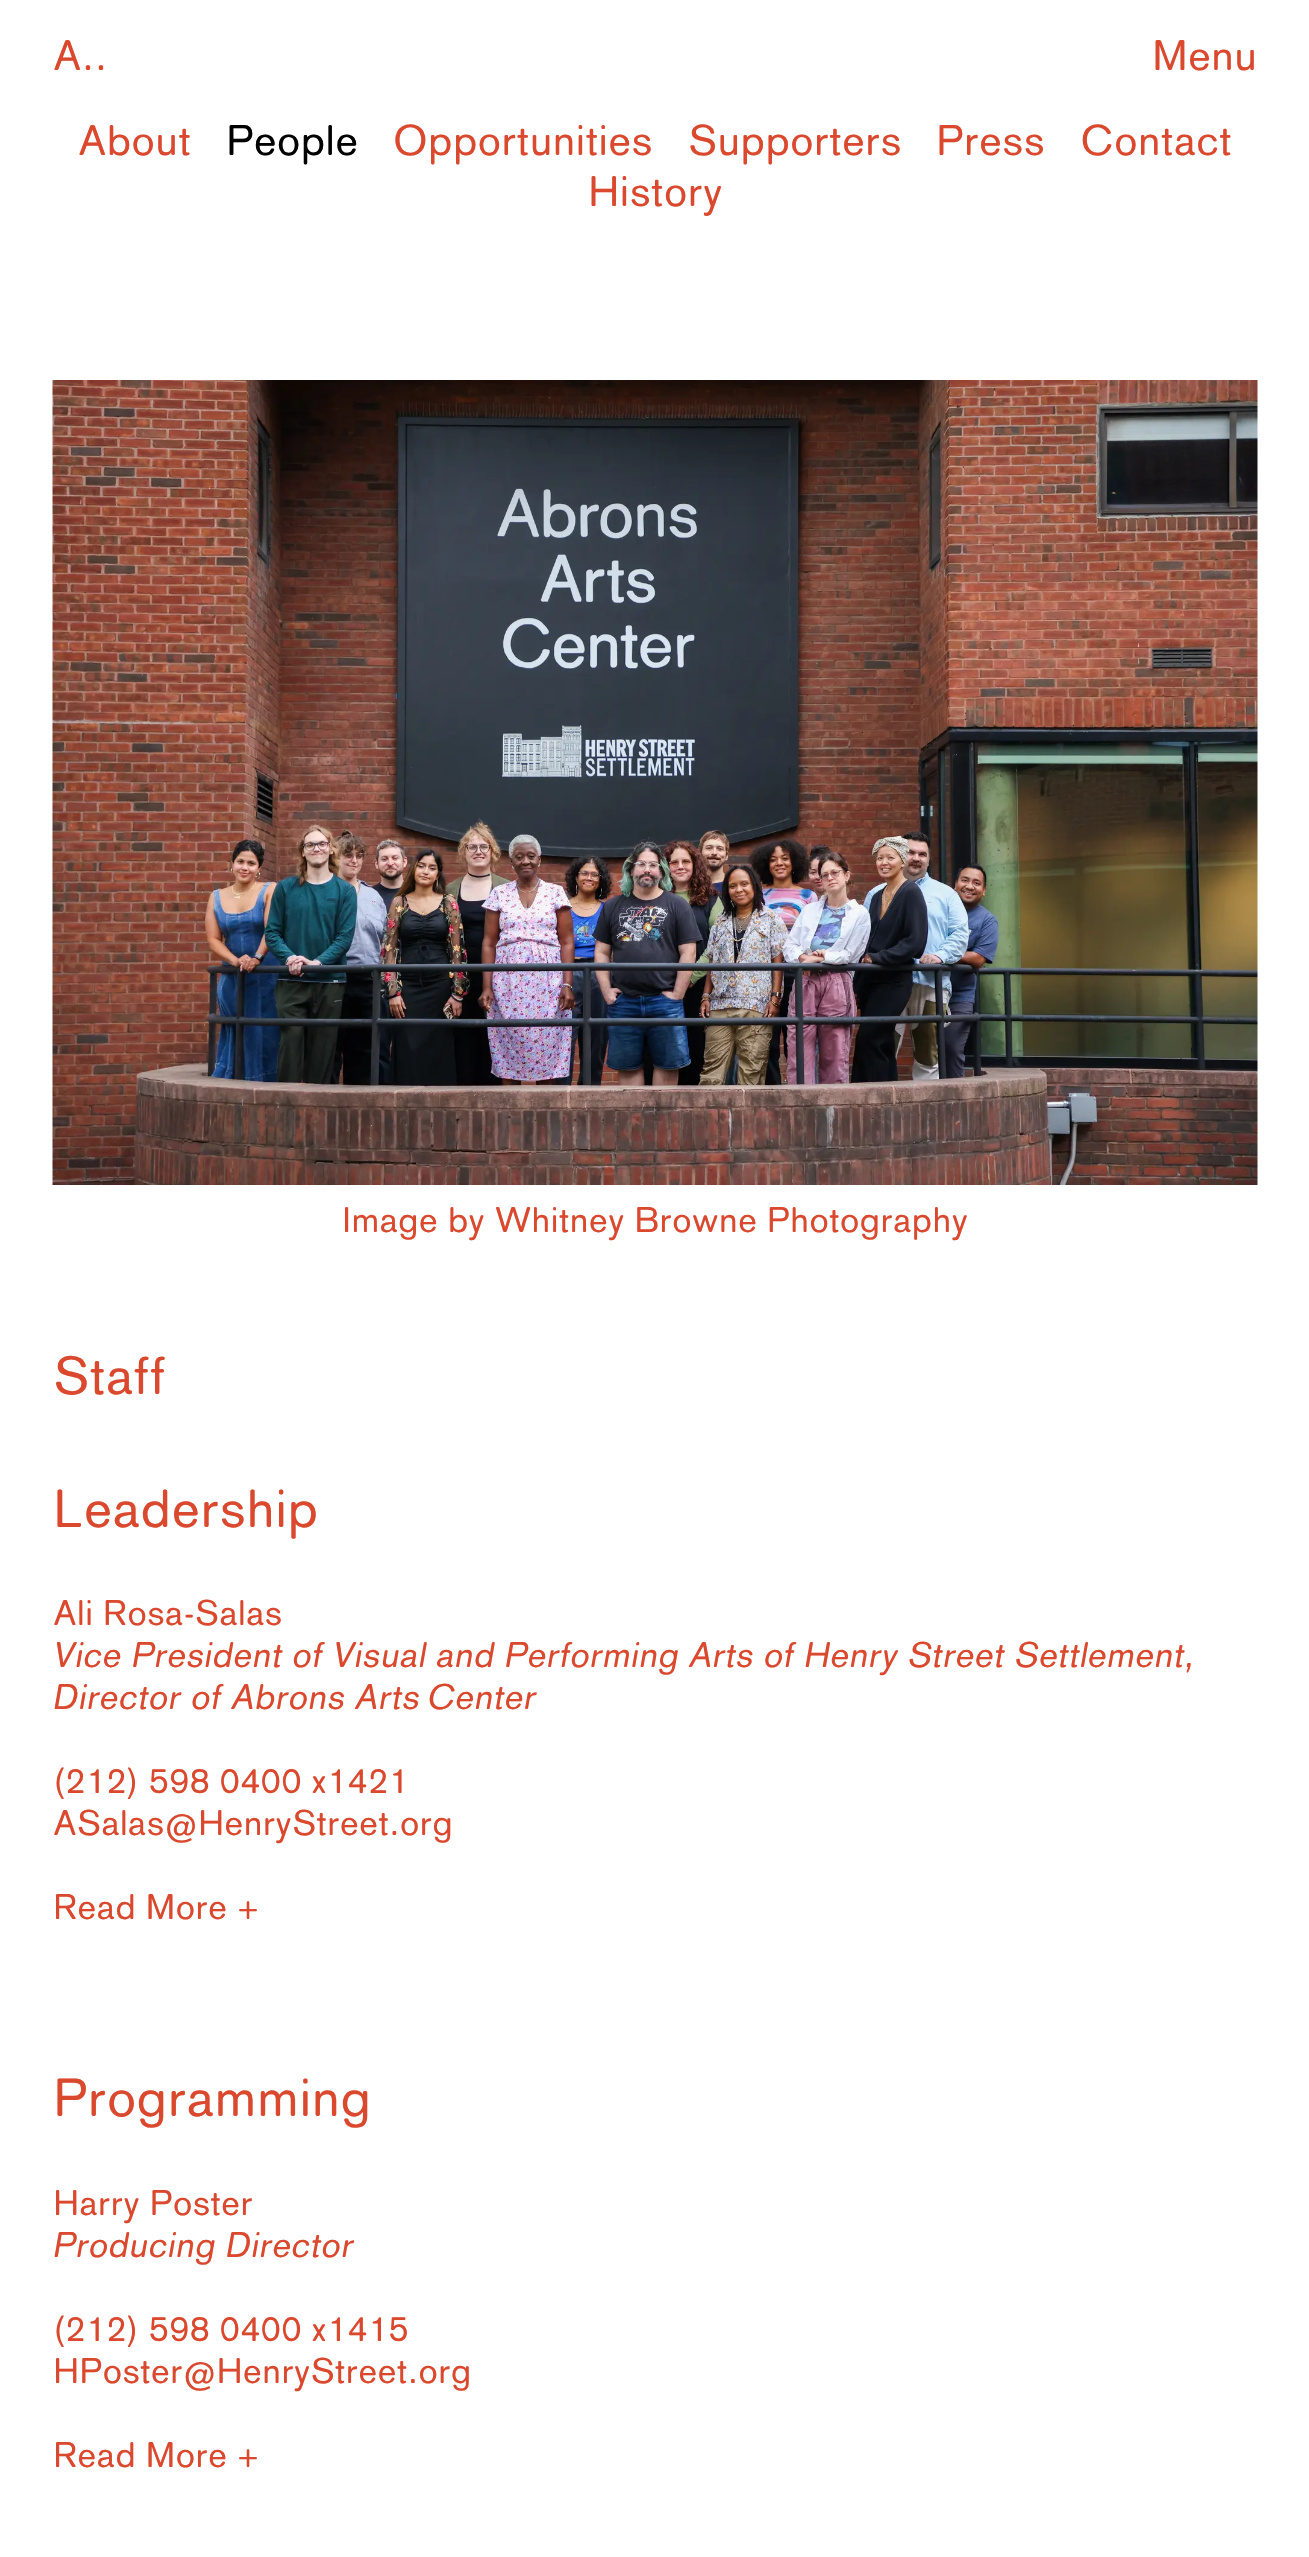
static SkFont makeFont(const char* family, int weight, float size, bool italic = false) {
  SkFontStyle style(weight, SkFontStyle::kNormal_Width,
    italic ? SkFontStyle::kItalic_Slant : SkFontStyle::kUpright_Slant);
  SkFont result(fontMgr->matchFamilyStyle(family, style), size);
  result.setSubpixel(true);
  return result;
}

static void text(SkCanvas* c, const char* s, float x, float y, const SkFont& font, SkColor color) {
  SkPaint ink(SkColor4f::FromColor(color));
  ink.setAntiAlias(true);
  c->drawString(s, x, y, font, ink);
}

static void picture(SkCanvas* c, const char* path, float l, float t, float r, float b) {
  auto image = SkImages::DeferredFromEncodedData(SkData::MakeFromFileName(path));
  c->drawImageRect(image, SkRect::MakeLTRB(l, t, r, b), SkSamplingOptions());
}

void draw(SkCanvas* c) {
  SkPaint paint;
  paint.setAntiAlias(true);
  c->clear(0xffffffff);
  SkFont face1 = makeFont("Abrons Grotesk", 400, 42);
  text(c, "A..", 53, 70, face1, 0xffda482e);
  text(c, "Menu", 1152, 70, face1, 0xffda482e);
  text(c, "About", 78, 155, face1, 0xffda482e);
  text(c, "People", 226, 155, face1, 0xff000000);
  text(c, "Opportunities", 393, 155, face1, 0xffda482e);
  text(c, "Supporters", 688, 155, face1, 0xffda482e);
  text(c, "Press", 936, 155, face1, 0xffda482e);
  text(c, "Contact", 1080, 155, face1, 0xffda482e);
  text(c, "History", 588, 206, face1, 0xffda482e);
  picture(c, "img_01.png", 52, 380, 1258, 1185);
  SkFont face2 = makeFont("Abrons Grotesk", 400, 35);
  text(c, "Image by Whitney Browne Photography", 342, 1232, face2, 0xffda482e);
  SkFont face3 = makeFont("Abrons Grotesk", 400, 52.5f);
  text(c, "Staff", 53, 1394, face3, 0xffda482e);
  text(c, "Leadership", 53, 1527, face3, 0xffda482e);
  text(c, "Ali Rosa-Salas", 53, 1625, face2, 0xffda482e);
  SkFont face4 = makeFont("Abrons Grotesk", 400, 35, true);
  text(c, "Vice President of Visual and Performing Arts of Henry Street Settlement,", 53, 1667, face4, 0xffda482e);
  text(c, "Director of Abrons Arts", 53, 1709, face4, 0xffda482e);
  text(c, "Center", 427, 1709, face4, 0xffda482e);
  text(c, "(212) 598 0400 x1421", 53, 1793, face2, 0xffda482e);
  text(c, "ASalas@HenryStreet.org", 53, 1835, face2, 0xffda482e);
  text(c, "Read More +", 53, 1919, face2, 0xffda482e);
  text(c, "Programming", 53, 2116, face3, 0xffda482e);
  text(c, "Harry Poster", 53, 2215, face2, 0xffda482e);
  text(c, "Producing Director", 53, 2257, face4, 0xffda482e);
  text(c, "(212) 598 0400 x1415", 53, 2341, face2, 0xffda482e);
  text(c, "HPoster@HenryStreet.org", 53, 2383, face2, 0xffda482e);
  text(c, "Read More +", 53, 2467, face2, 0xffda482e);
}
